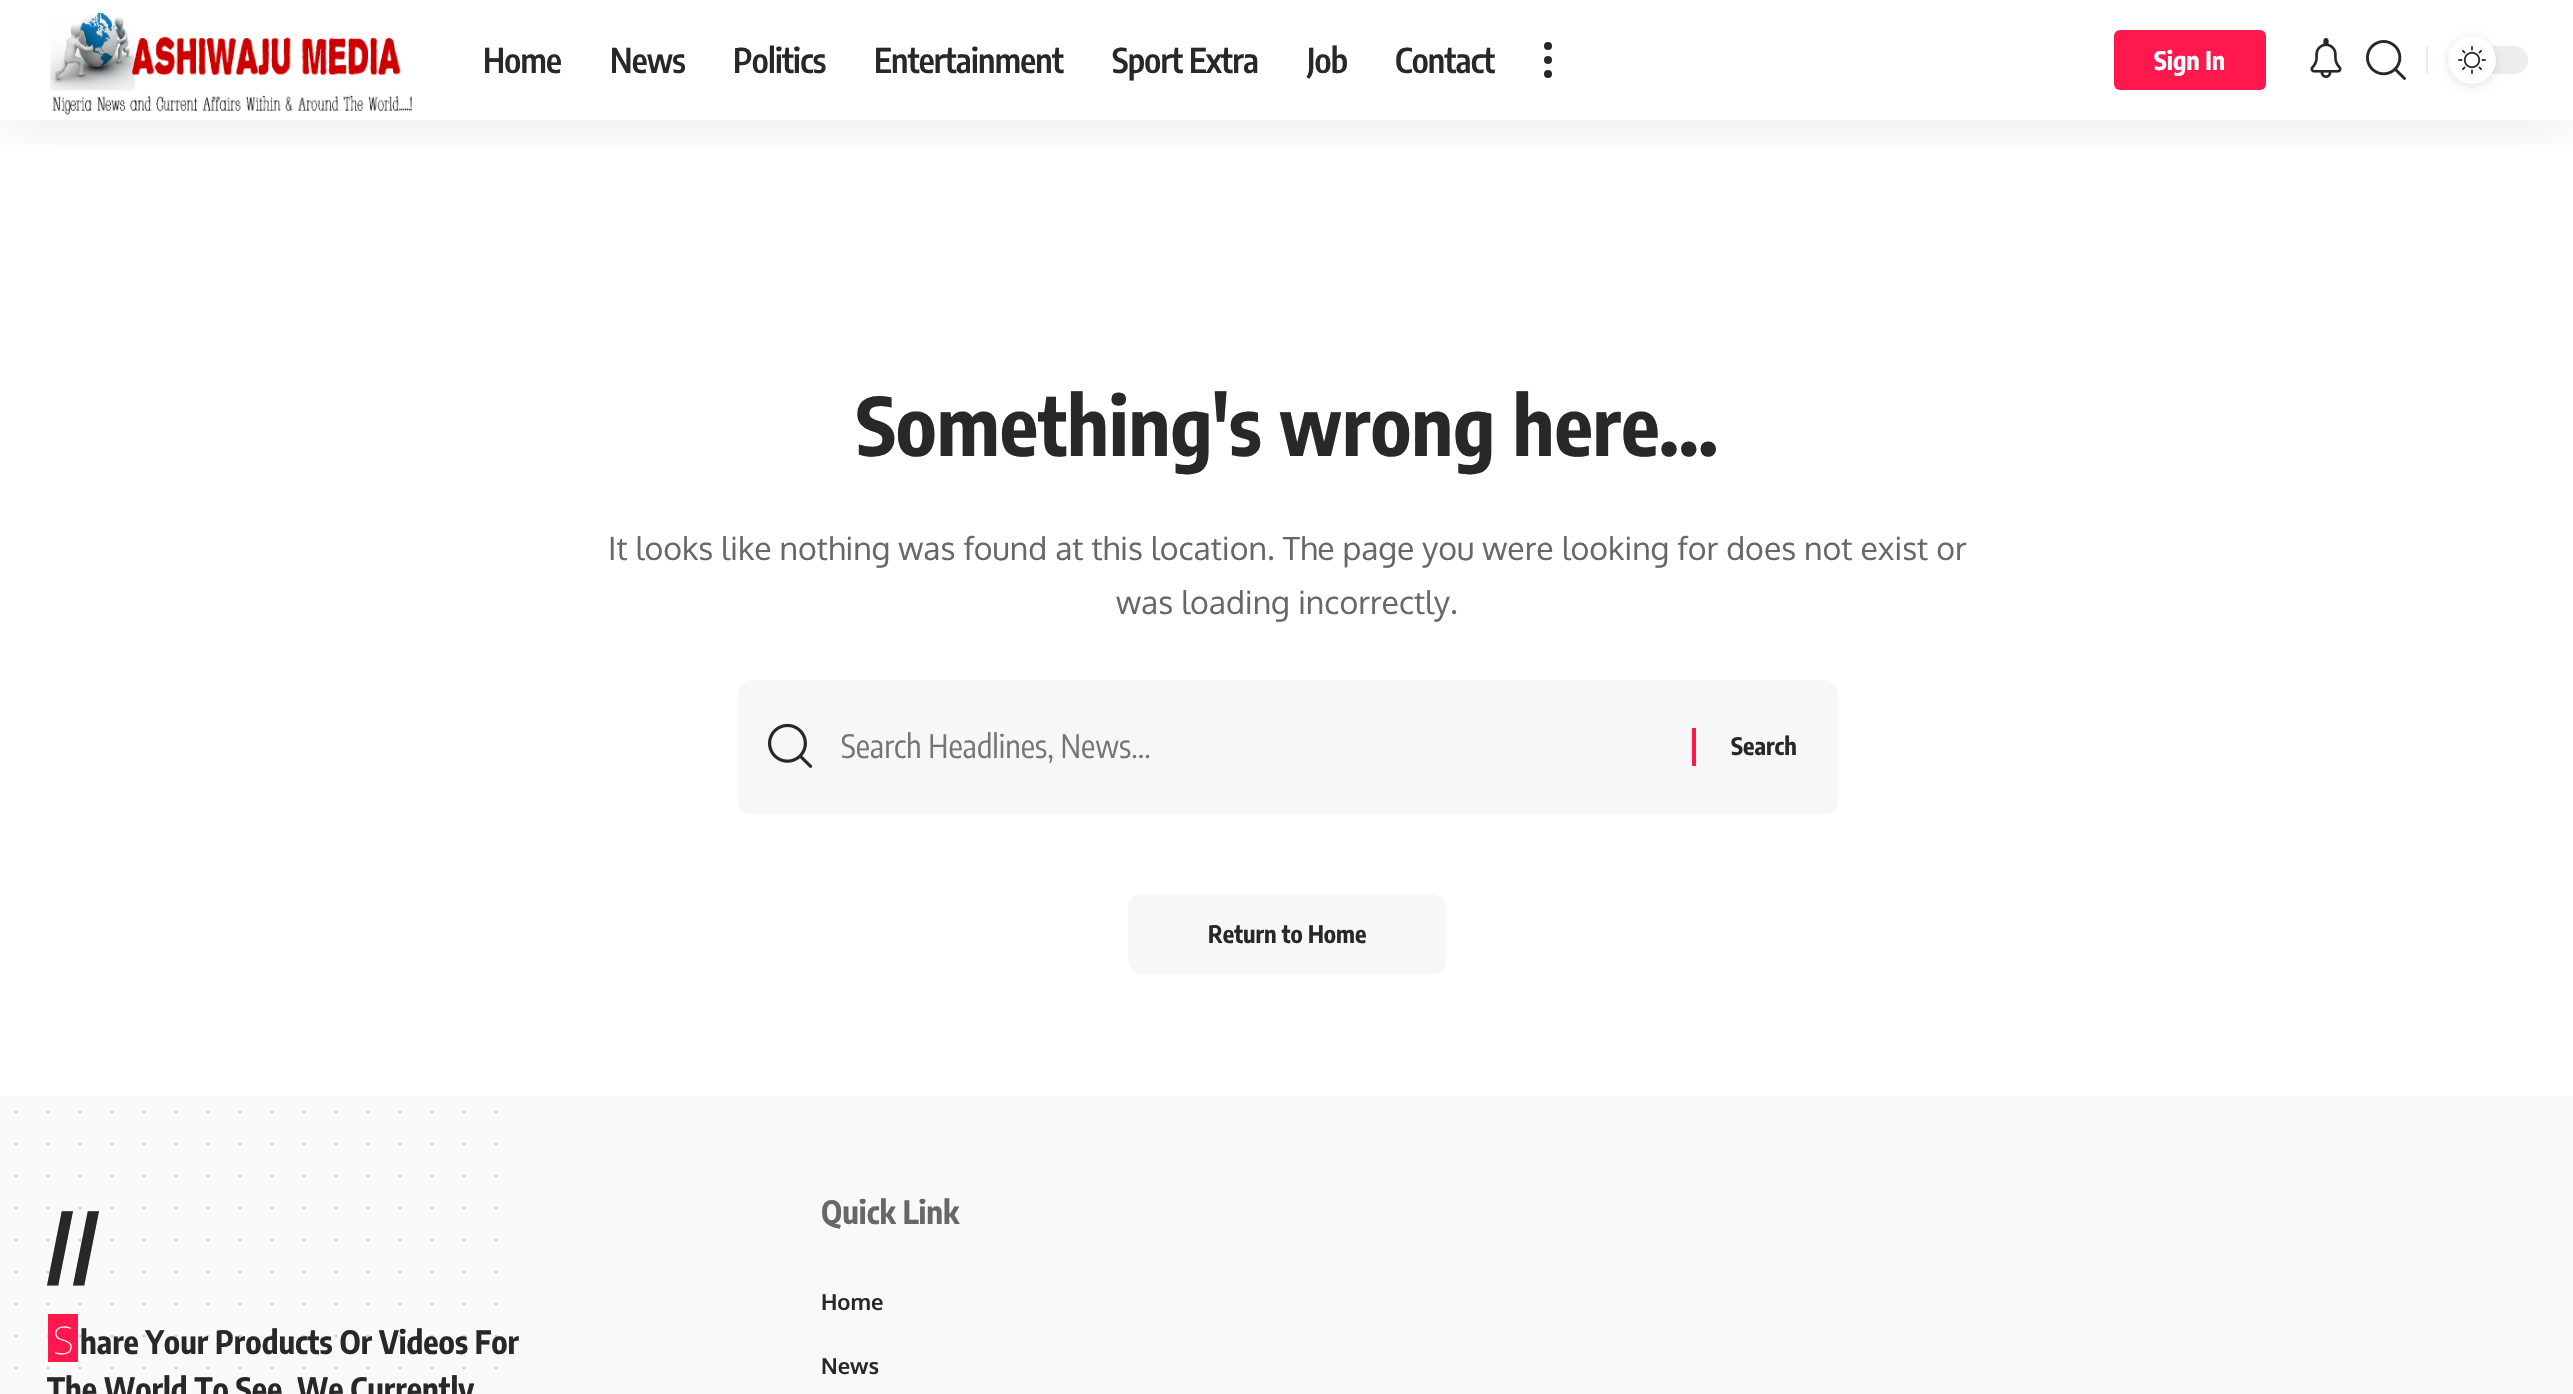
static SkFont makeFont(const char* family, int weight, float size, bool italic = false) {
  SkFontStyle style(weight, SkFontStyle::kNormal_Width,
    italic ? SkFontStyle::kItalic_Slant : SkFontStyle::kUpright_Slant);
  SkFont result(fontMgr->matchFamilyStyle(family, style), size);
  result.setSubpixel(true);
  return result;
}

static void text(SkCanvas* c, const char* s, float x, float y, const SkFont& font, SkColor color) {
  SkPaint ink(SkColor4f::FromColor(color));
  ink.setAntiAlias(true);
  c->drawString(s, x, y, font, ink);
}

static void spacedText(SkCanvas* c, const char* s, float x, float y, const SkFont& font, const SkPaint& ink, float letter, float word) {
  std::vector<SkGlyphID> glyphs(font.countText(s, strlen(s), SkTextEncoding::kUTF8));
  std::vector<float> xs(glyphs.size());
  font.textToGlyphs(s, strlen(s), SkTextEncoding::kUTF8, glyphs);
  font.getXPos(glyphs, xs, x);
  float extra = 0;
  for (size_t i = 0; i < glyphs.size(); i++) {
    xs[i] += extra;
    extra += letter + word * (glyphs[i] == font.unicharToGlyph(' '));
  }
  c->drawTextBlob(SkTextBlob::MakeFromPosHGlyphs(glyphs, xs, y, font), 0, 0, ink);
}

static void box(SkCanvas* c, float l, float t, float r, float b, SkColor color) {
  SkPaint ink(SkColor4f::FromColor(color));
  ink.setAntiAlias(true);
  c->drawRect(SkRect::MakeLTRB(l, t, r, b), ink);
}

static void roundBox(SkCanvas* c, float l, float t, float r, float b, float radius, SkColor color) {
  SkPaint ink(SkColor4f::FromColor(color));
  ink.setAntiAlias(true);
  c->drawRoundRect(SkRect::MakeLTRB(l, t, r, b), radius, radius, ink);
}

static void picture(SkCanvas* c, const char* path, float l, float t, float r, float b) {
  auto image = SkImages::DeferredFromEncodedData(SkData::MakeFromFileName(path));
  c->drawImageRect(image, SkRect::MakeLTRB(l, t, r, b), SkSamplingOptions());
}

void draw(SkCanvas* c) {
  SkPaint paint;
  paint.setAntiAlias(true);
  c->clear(0xffffffff);
  c->save();
  c->clipRect(SkRect::MakeLTRB(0, 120, 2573, 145));
  paint.setColor(0x12000000);
  paint.setMaskFilter(SkMaskFilter::MakeBlur(kNormal_SkBlurStyle, 30));
  c->drawRect(SkRect::MakeLTRB(0, 8, 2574, 128), paint);
  paint.setMaskFilter(nullptr);
  c->restore();
  picture(c, "img_01.png", 50, 12, 412, 115);
  SkFont face1 = makeFont("Encode Sans Condensed", 600, 34);
  paint.setColor(0xff282828);
  spacedText(c, "Home", 483, 73, face1, paint, -0.75f, 0);
  spacedText(c, "News", 610, 73, face1, paint, -0.75f, 0);
  spacedText(c, "Politics", 733, 73, face1, paint, -0.75f, 0);
  spacedText(c, "Entertainment", 874, 73, face1, paint, -0.75f, 0);
  spacedText(c, "Sport Extra", 1112, 73, face1, paint, -0.75f, 0);
  spacedText(c, "Job", 1307, 73, face1, paint, -0.75f, 0);
  spacedText(c, "Contact", 1395, 73, face1, paint, -0.75f, 0);
  c->drawCircle(1548, 46, 4, paint);
  c->drawCircle(1548, 60, 4, paint);
  c->drawCircle(1548, 74, 4, paint);
  roundBox(c, 2114, 30, 2266, 90, 6, 0xffff184e);
  SkFont face2 = makeFont("Encode Sans Condensed", 700, 25.5f);
  text(c, "Sign In", 2154, 70, face2, 0xffffffff);
  picture(c, "img_02.png", 2310, 38, 2342, 78);
  picture(c, "img_03.png", 2366, 40, 2406, 80);
  box(c, 2426, 46, 2428, 74, 0xffeaeaea);
  roundBox(c, 2448, 46, 2528, 74, 14, 0xffededed);
  paint.setColor(0x1f000000);
  paint.setMaskFilter(SkMaskFilter::MakeBlur(kNormal_SkBlurStyle, 4));
  c->drawRoundRect(SkRect::MakeLTRB(2448, 38, 2496, 86), 24, 24, paint);
  paint.setMaskFilter(nullptr);
  paint.setColor(0xffffffff);
  c->drawCircle(2472, 60, 24, paint);
  picture(c, "img_04.png", 2458, 46, 2486, 74);
  SkFont face3 = makeFont("Encode Sans Condensed", 700, 80);
  text(c, "Something's wrong here...", 856, 456, face3, 0xff282828);
  SkFont face4 = makeFont("Oxygen", 400, 32);
  text(c, "It looks like nothing was found at this location. The page you were looking for does not exist or", 608, 560, face4, 0xff676767);
  text(c, "was loading incorrectly.", 1116, 614, face4, 0xff676767);
  roundBox(c, 738, 680, 1838, 814, 14, 0xfff7f7f7);
  picture(c, "img_05.png", 768, 723, 813, 768);
  SkFont face5 = makeFont("Encode Sans Condensed", 400, 32);
  text(c, "Search Headlines, News...", 841, 758, face5, 0xff757575);
  box(c, 1692, 728, 1696, 766, 0xffff184e);
  SkFont face6 = makeFont("Encode Sans Condensed", 700, 24);
  text(c, "Search", 1731, 755, face6, 0xff282828);
  roundBox(c, 1128, 894, 1446, 974, 14, 0xfff7f7f7);
  text(c, "Return to Home", 1208, 943, face6, 0xff282828);
  box(c, 0, 1096, 2573, 1394, 0xfff9f9f9);
  paint.setStyle(SkPaint::kStroke_Style);
  paint.setStrokeWidth(3);
  paint.setStrokeCap(SkPaint::kRound_Cap);
  paint.setColor(0xffcfcfcf);
  paint.setPathEffect(SkDashPathEffect::Make({{0, 32}}, 0));
  c->drawPath(SkPathBuilder().moveTo(16, 1112).lineTo(496.4f, 1112).detach(), paint);
  paint.setPathEffect(nullptr);
  paint.setPathEffect(SkDashPathEffect::Make({{0, 32}}, 0));
  c->drawPath(SkPathBuilder().moveTo(16, 1144).lineTo(496.4f, 1144).detach(), paint);
  paint.setPathEffect(nullptr);
  paint.setPathEffect(SkDashPathEffect::Make({{0, 32}}, 0));
  c->drawPath(SkPathBuilder().moveTo(16, 1176).lineTo(496.4f, 1176).detach(), paint);
  paint.setPathEffect(nullptr);
  paint.setPathEffect(SkDashPathEffect::Make({{0, 32}}, 0));
  c->drawPath(SkPathBuilder().moveTo(16, 1208).lineTo(496.4f, 1208).detach(), paint);
  paint.setPathEffect(nullptr);
  paint.setPathEffect(SkDashPathEffect::Make({{0, 32}}, 0));
  c->drawPath(SkPathBuilder().moveTo(16, 1240).lineTo(496.4f, 1240).detach(), paint);
  paint.setPathEffect(nullptr);
  paint.setPathEffect(SkDashPathEffect::Make({{0, 32}}, 0));
  c->drawPath(SkPathBuilder().moveTo(16, 1272).lineTo(496.4f, 1272).detach(), paint);
  paint.setPathEffect(nullptr);
  paint.setPathEffect(SkDashPathEffect::Make({{0, 32}}, 0));
  c->drawPath(SkPathBuilder().moveTo(16, 1304).lineTo(496.4f, 1304).detach(), paint);
  paint.setPathEffect(nullptr);
  paint.setPathEffect(SkDashPathEffect::Make({{0, 32}}, 0));
  c->drawPath(SkPathBuilder().moveTo(16, 1336).lineTo(496.4f, 1336).detach(), paint);
  paint.setPathEffect(nullptr);
  paint.setPathEffect(SkDashPathEffect::Make({{0, 32}}, 0));
  c->drawPath(SkPathBuilder().moveTo(16, 1368).lineTo(496.4f, 1368).detach(), paint);
  paint.setPathEffect(nullptr);
  text(c, "//", 47, 1276, face3, 0xff282828);
  box(c, 48, 1314, 78, 1362, 0xffff184e);
  SkFont face7 = makeFont("Noto Sans", 100, 38);
  text(c, "S", 53, 1354, face7, 0xffffffff);
  SkFont face8 = makeFont("Encode Sans Condensed", 700, 32);
  text(c, "hare Your Products Or Videos For", 80, 1354, face8, 0xff282828);
  text(c, "The World To See, We Currently", 47, 1401, face8, 0xff282828);
  text(c, "Quick Link", 821, 1224, face8, 0xff676767);
  SkFont face9 = makeFont("Oxygen", 700, 22);
  text(c, "Home", 821, 1310, face9, 0xff282828);
  text(c, "News", 821, 1374, face9, 0xff282828);
}
